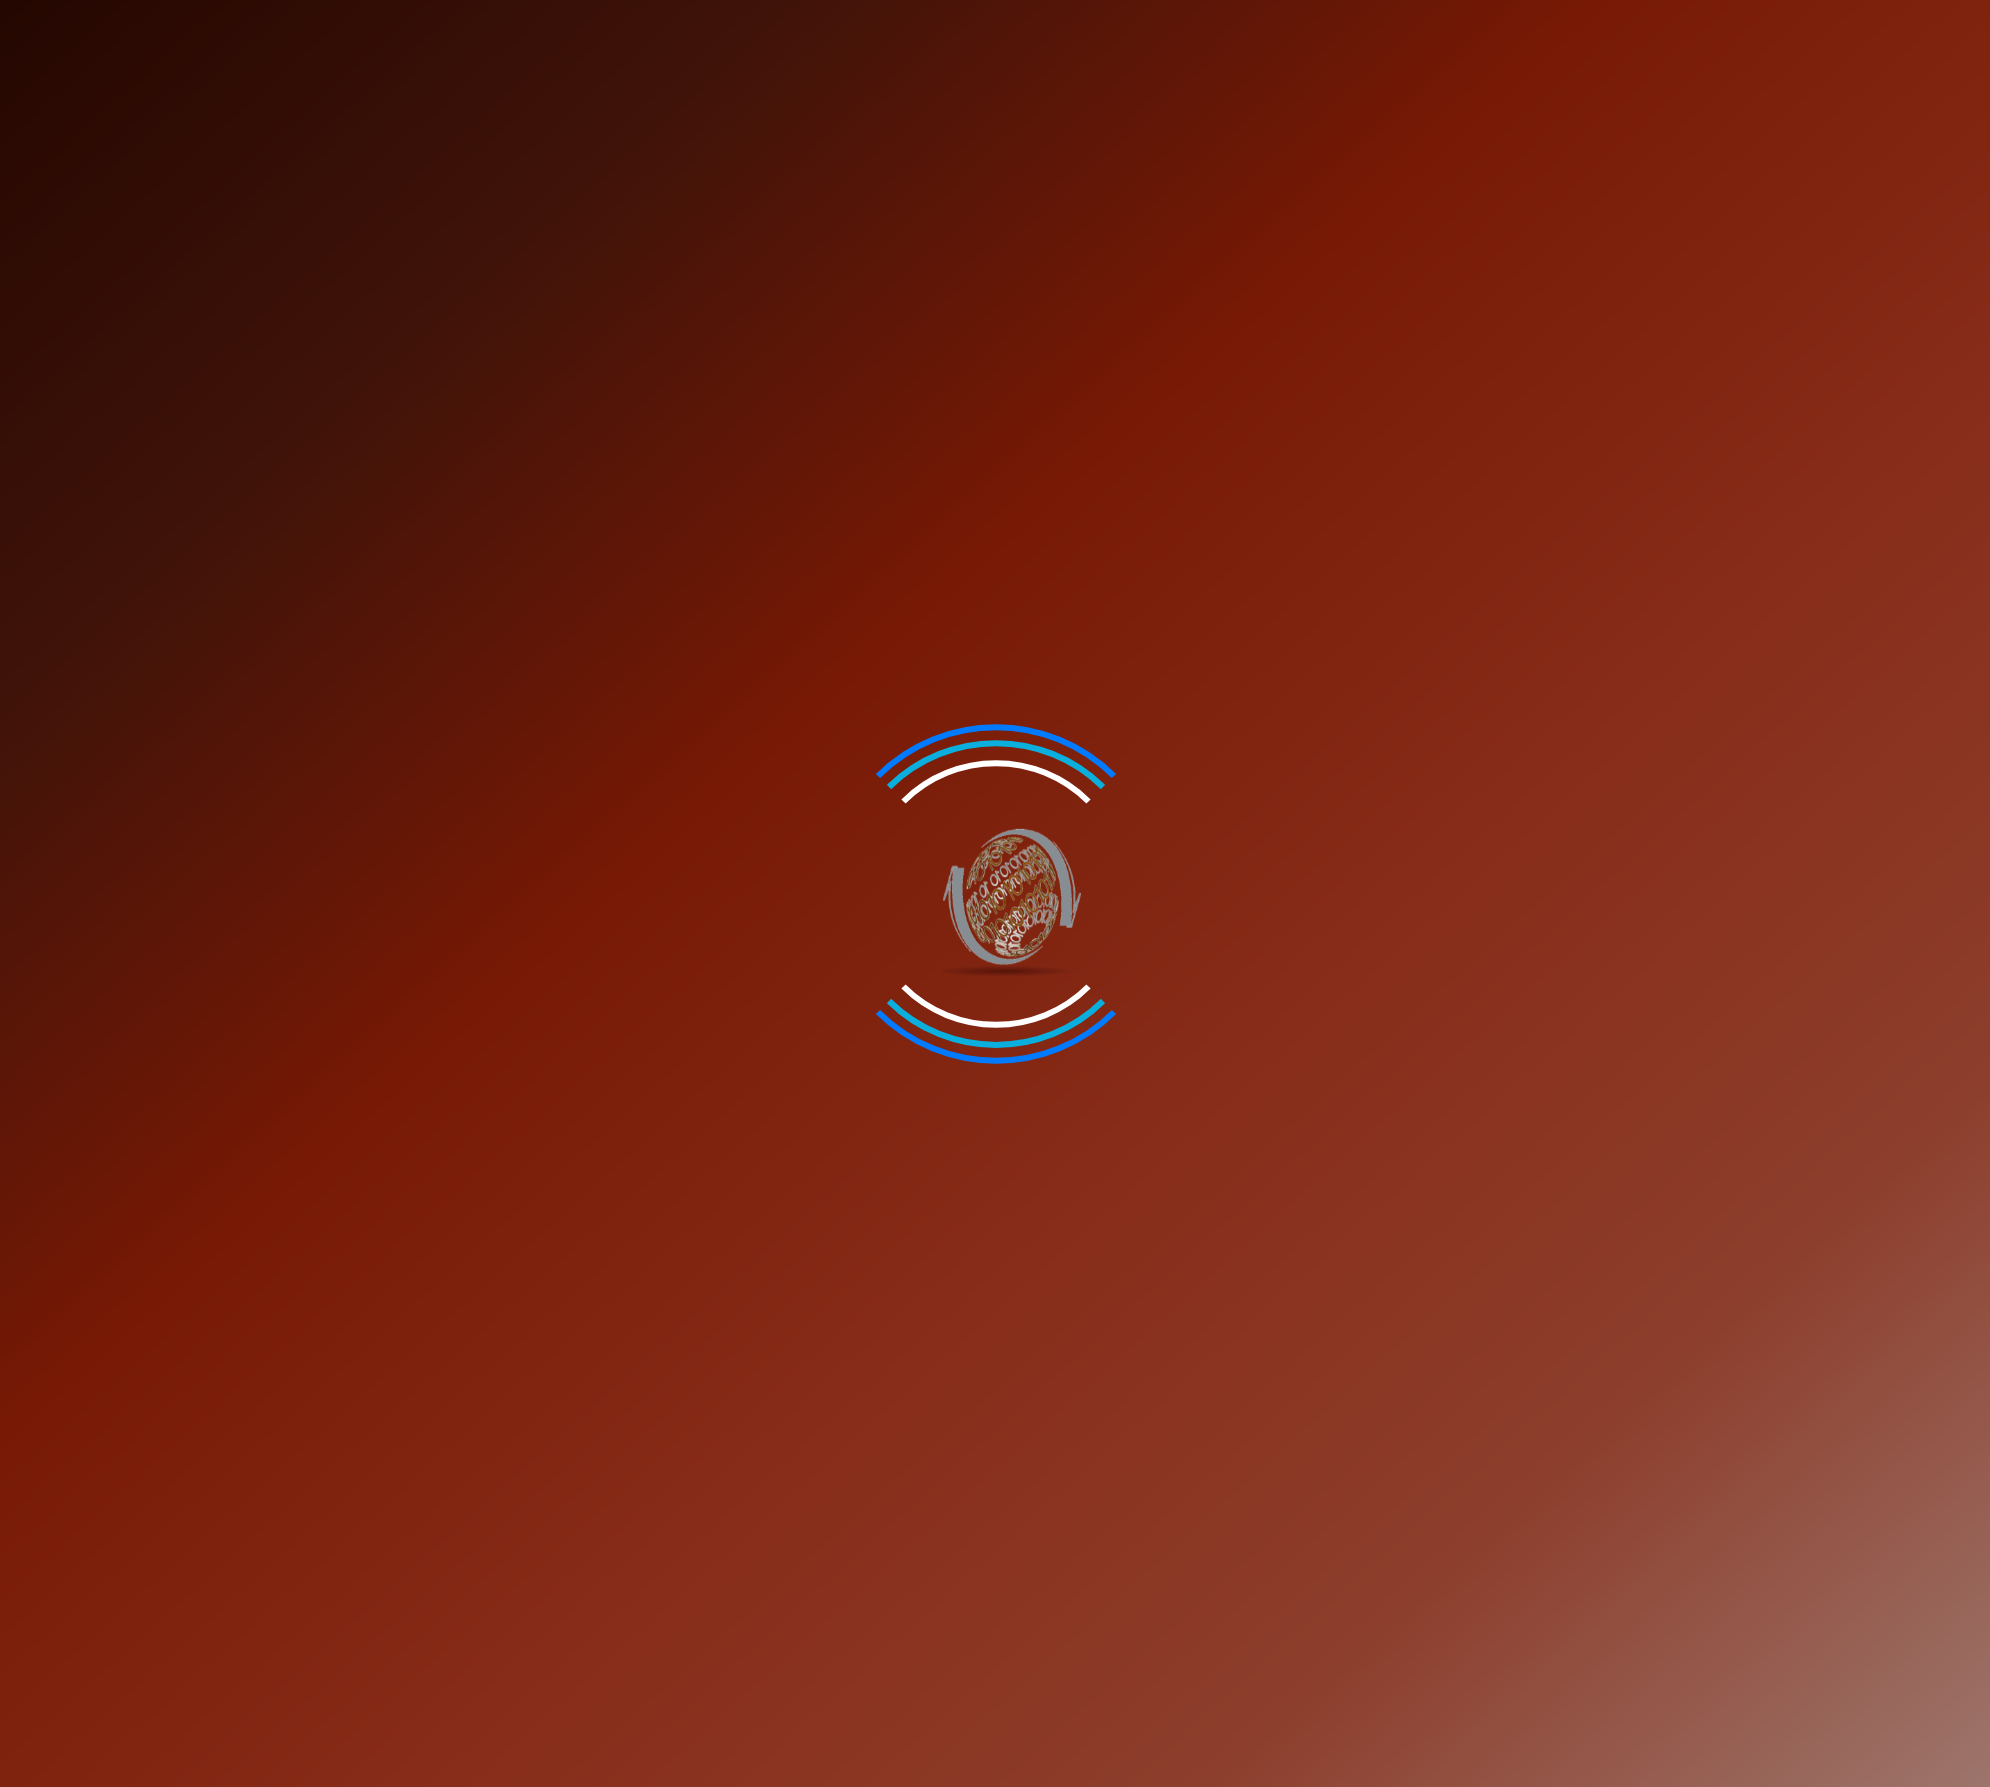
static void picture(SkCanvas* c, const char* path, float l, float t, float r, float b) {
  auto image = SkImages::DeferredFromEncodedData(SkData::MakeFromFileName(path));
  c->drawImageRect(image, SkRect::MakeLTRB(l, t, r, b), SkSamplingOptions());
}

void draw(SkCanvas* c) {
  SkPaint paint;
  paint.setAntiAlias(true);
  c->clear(0xffffffff);
  {
    const SkColor colors[] = {0xff240701, 0xff401309, 0xff771905, 0xff872c18, 0xff8d3e2c, 0xff9d756c};
    const float stops[] = {0, 0.2f, 0.4f, 0.6f, 0.8f, 1};
    const SkPoint ends[] = {{106, -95}, {1884, 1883}};
    paint.setShader(SkGradientShader::MakeLinear(ends, colors, stops, 6, SkTileMode::kClamp));
    paint.setAlpha(255);
  }
  c->drawRect(SkRect::MakeLTRB(0, 0, 1990, 1787), paint);
  paint.setStyle(SkPaint::kStroke_Style);
  paint.setStrokeWidth(6);
  paint.setShader(nullptr);
  paint.setColor(0xff007bff);
  c->drawPath(SkPathBuilder().moveTo(878, 776).cubicTo(943, 711, 1049, 711, 1114, 776).detach(), paint);
  c->drawPath(SkPathBuilder().moveTo(1114, 1012).cubicTo(1049, 1077, 943, 1077, 878, 1012).detach(), paint);
  paint.setColor(0xff0aafde);
  c->drawPath(SkPathBuilder().moveTo(889, 787).cubicTo(948, 728.5f, 1044, 728.5f, 1103, 787).detach(), paint);
  c->drawPath(SkPathBuilder().moveTo(1103, 1001).cubicTo(1044, 1059.5f, 948, 1059.5f, 889, 1001).detach(), paint);
  paint.setColor(0xffffffff);
  c->drawPath(SkPathBuilder().moveTo(903.5f, 801.5f).cubicTo(954.5f, 750.5f, 1037.5f, 750.5f, 1088.5f, 801.5f).detach(), paint);
  c->drawPath(SkPathBuilder().moveTo(1088.5f, 986.5f).cubicTo(1037.5f, 1037.5f, 954.5f, 1037.5f, 903.5f, 986.5f).detach(), paint);
  picture(c, "img_01.png", 942, 828, 1081, 976);
}
